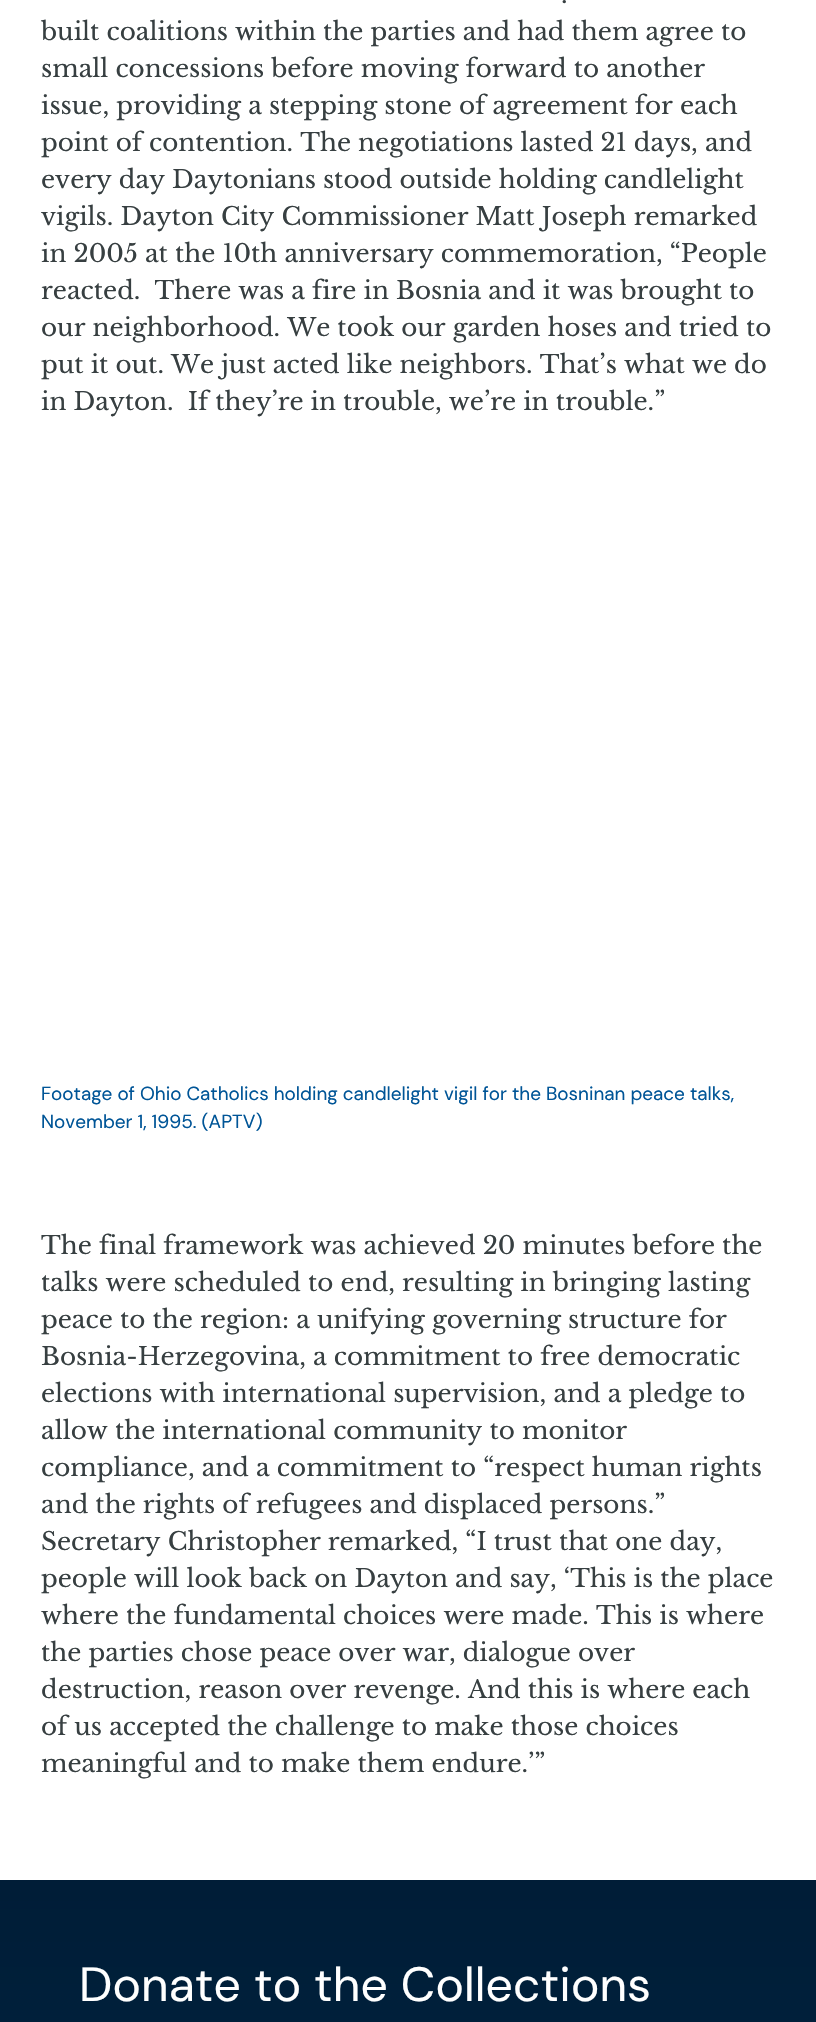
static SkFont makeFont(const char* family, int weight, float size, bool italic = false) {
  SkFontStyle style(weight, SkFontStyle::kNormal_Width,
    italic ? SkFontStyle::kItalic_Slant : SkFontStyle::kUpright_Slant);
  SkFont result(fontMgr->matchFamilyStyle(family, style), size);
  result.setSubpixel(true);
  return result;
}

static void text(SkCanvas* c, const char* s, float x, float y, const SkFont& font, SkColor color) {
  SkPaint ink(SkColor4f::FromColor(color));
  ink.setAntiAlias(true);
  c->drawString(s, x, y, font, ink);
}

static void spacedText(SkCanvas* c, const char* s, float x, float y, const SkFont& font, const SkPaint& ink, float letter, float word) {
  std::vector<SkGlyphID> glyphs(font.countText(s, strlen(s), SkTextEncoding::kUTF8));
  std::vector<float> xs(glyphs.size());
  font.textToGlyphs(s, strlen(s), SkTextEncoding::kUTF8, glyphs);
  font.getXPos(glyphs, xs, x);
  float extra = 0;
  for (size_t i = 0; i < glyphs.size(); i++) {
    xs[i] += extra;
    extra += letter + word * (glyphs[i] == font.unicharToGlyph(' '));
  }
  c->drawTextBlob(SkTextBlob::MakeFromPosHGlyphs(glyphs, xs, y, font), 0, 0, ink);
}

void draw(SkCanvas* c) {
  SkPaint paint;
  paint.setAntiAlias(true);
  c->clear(0xffffffff);
  SkFont face1 = makeFont("Libre Baskerville", 400, 24.65f);
  text(c, ".", 561, 3, face1, 0xff373f41);
  text(c, "built coalitions within the parties and had them agree to", 41, 40, face1, 0xff373f41);
  text(c, "small concessions before moving forward to another", 41, 77, face1, 0xff373f41);
  text(c, "issue, providing a stepping stone of agreement for each", 41, 114, face1, 0xff373f41);
  text(c, "point of contention. The negotiations lasted 21 days, and", 41, 151, face1, 0xff373f41);
  text(c, "every day Daytonians stood outside holding candlelight", 41, 188, face1, 0xff373f41);
  text(c, "vigils. Dayton City Commissioner Matt Joseph remarked", 41, 225, face1, 0xff373f41);
  text(c, "in 2005 at the 10th anniversary commemoration, “People", 41, 262, face1, 0xff373f41);
  text(c, "reacted.  There was a fire in Bosnia and it was brought to", 41, 299, face1, 0xff373f41);
  text(c, "our neighborhood. We took our garden hoses and tried to", 41, 336, face1, 0xff373f41);
  text(c, "put it out. We just acted like neighbors. That’s what we do", 41, 373, face1, 0xff373f41);
  text(c, "in Dayton.  If they’re in trouble, we’re in trouble.”", 41, 410, face1, 0xff373f41);
  SkFont face2 = makeFont("DM Sans", 400, 18.95f);
  text(c, "Footage of Ohio Catholics holding candlelight vigil for the Bosninan peace talks,", 41, 1100, face2, 0xff005597);
  text(c, "November 1, 1995. (APTV)", 41, 1128, face2, 0xff005597);
  text(c, "The final framework was achieved 20 minutes before the", 41, 1254, face1, 0xff373f41);
  text(c, "talks were scheduled to end, resulting in bringing lasting", 41, 1291, face1, 0xff373f41);
  text(c, "peace to the region: a unifying governing structure for", 41, 1328, face1, 0xff373f41);
  text(c, "Bosnia-Herzegovina, a commitment to free democratic", 41, 1365, face1, 0xff373f41);
  text(c, "elections with international supervision, and a pledge to", 41, 1402, face1, 0xff373f41);
  text(c, "allow the international community to monitor", 41, 1439, face1, 0xff373f41);
  text(c, "compliance, and a commitment to “respect human rights", 41, 1476, face1, 0xff373f41);
  text(c, "and the rights of refugees and displaced persons.”", 41, 1513, face1, 0xff373f41);
  text(c, "Secretary Christopher remarked, “I trust that one day,", 41, 1550, face1, 0xff373f41);
  text(c, "people will look back on Dayton and say, ‘This is the place", 41, 1587, face1, 0xff373f41);
  text(c, "where the fundamental choices were made. This is where", 41, 1624, face1, 0xff373f41);
  text(c, "the parties chose peace over war, dialogue over", 41, 1661, face1, 0xff373f41);
  text(c, "destruction, reason over revenge. And this is where each", 41, 1698, face1, 0xff373f41);
  text(c, "of us accepted the challenge to make those choices", 41, 1735, face1, 0xff373f41);
  text(c, "meaningful and to make them endure.’”", 41, 1772, face1, 0xff373f41);
  {
    const SkColor colors[] = {0xff001d37, 0xff002745};
    const float stops[] = {0, 1};
    const SkPoint ends[] = {{408, 1880}, {408, 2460}};
    paint.setShader(SkGradientShader::MakeLinear(ends, colors, stops, 2, SkTileMode::kClamp));
    paint.setAlpha(255);
  }
  c->drawRect(SkRect::MakeLTRB(0, 1880, 816, 2022), paint);
  SkFont face3 = makeFont("DM Sans", 400, 48);
  paint.setShader(nullptr);
  paint.setColor(0xffffffff);
  spacedText(c, "Donate to the Collections", 79, 2001, face3, paint, 0.15f, 0);
}
